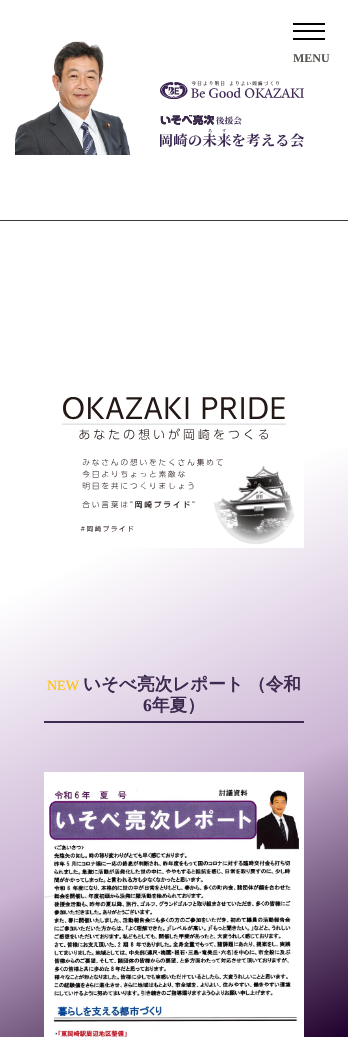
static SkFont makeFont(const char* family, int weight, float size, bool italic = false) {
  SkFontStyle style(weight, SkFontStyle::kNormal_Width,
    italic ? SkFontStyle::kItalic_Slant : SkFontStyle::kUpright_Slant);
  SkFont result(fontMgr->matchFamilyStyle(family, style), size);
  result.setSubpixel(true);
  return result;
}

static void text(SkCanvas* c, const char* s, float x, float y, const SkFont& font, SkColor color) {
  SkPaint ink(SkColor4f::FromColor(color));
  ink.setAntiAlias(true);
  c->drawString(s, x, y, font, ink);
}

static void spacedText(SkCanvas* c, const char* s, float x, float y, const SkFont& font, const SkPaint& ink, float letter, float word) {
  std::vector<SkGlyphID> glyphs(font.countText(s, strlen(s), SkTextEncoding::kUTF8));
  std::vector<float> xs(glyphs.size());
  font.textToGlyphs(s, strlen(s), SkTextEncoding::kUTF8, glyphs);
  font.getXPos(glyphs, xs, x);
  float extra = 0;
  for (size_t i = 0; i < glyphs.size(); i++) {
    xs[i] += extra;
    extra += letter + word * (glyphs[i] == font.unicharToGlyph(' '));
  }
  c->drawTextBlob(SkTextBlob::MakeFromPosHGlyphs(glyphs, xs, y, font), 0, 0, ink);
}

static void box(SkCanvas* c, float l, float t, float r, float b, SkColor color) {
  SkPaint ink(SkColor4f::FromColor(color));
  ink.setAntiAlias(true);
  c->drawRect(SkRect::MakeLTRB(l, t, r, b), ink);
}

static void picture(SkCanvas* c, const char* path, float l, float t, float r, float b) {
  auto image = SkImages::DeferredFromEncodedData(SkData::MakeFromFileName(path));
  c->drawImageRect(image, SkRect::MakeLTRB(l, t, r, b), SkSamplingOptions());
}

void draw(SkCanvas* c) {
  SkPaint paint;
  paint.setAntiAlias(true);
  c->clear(0xffffffff);
  {
    const SkColor colors[] = {0xffffffff, 0xffcbb4d4, 0xff20002c};
    const float stops[] = {0.5f, 0.75f, 1};
    const SkPoint ends[] = {{-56, 26}, {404, 1011}};
    paint.setShader(SkGradientShader::MakeLinear(ends, colors, stops, 3, SkTileMode::kClamp));
    paint.setAlpha(255);
  }
  c->drawRect(SkRect::MakeLTRB(0, 447, 348, 1037), paint);
  box(c, 0, 220, 348, 221, 0xff343a40);
  picture(c, "img_01.png", 15, 41, 130, 155);
  picture(c, "img_02.png", 160, 81, 304, 99);
  picture(c, "img_03.png", 160, 115, 304, 147);
  box(c, 293, 23, 325, 25, 0xff000000);
  box(c, 293, 38, 325, 40, 0xff000000);
  box(c, 293, 30, 325, 32, 0xff000000);
  SkFont face1 = makeFont("Liberation Serif", 700, 12);
  text(c, "MENU", 293, 62, face1, 0xff585652);
  picture(c, "img_04.png", 62, 397, 304, 548);
  box(c, 44, 721, 304, 723, 0xff3c2a50);
  SkFont face2 = makeFont("Liberation Serif", 400, 14);
  text(c, "NEW", 47, 690, face2, 0xffffc107);
  SkFont face3 = makeFont("WenQuanYi Zen Hei", 700, 17.6f);
  paint.setShader(nullptr);
  paint.setColor(0xff3c2a50);
  spacedText(c, "いそべ亮次レポート （令和", 83, 690, face3, paint, 0, -1);
  SkFont face4 = makeFont("Liberation Serif", 700, 17.6f);
  text(c, "6", 143, 711, face4, 0xff3c2a50);
  text(c, "年夏）", 152, 711, face3, 0xff3c2a50);
  picture(c, "img_05.png", 44, 772, 304, 1037);
}
